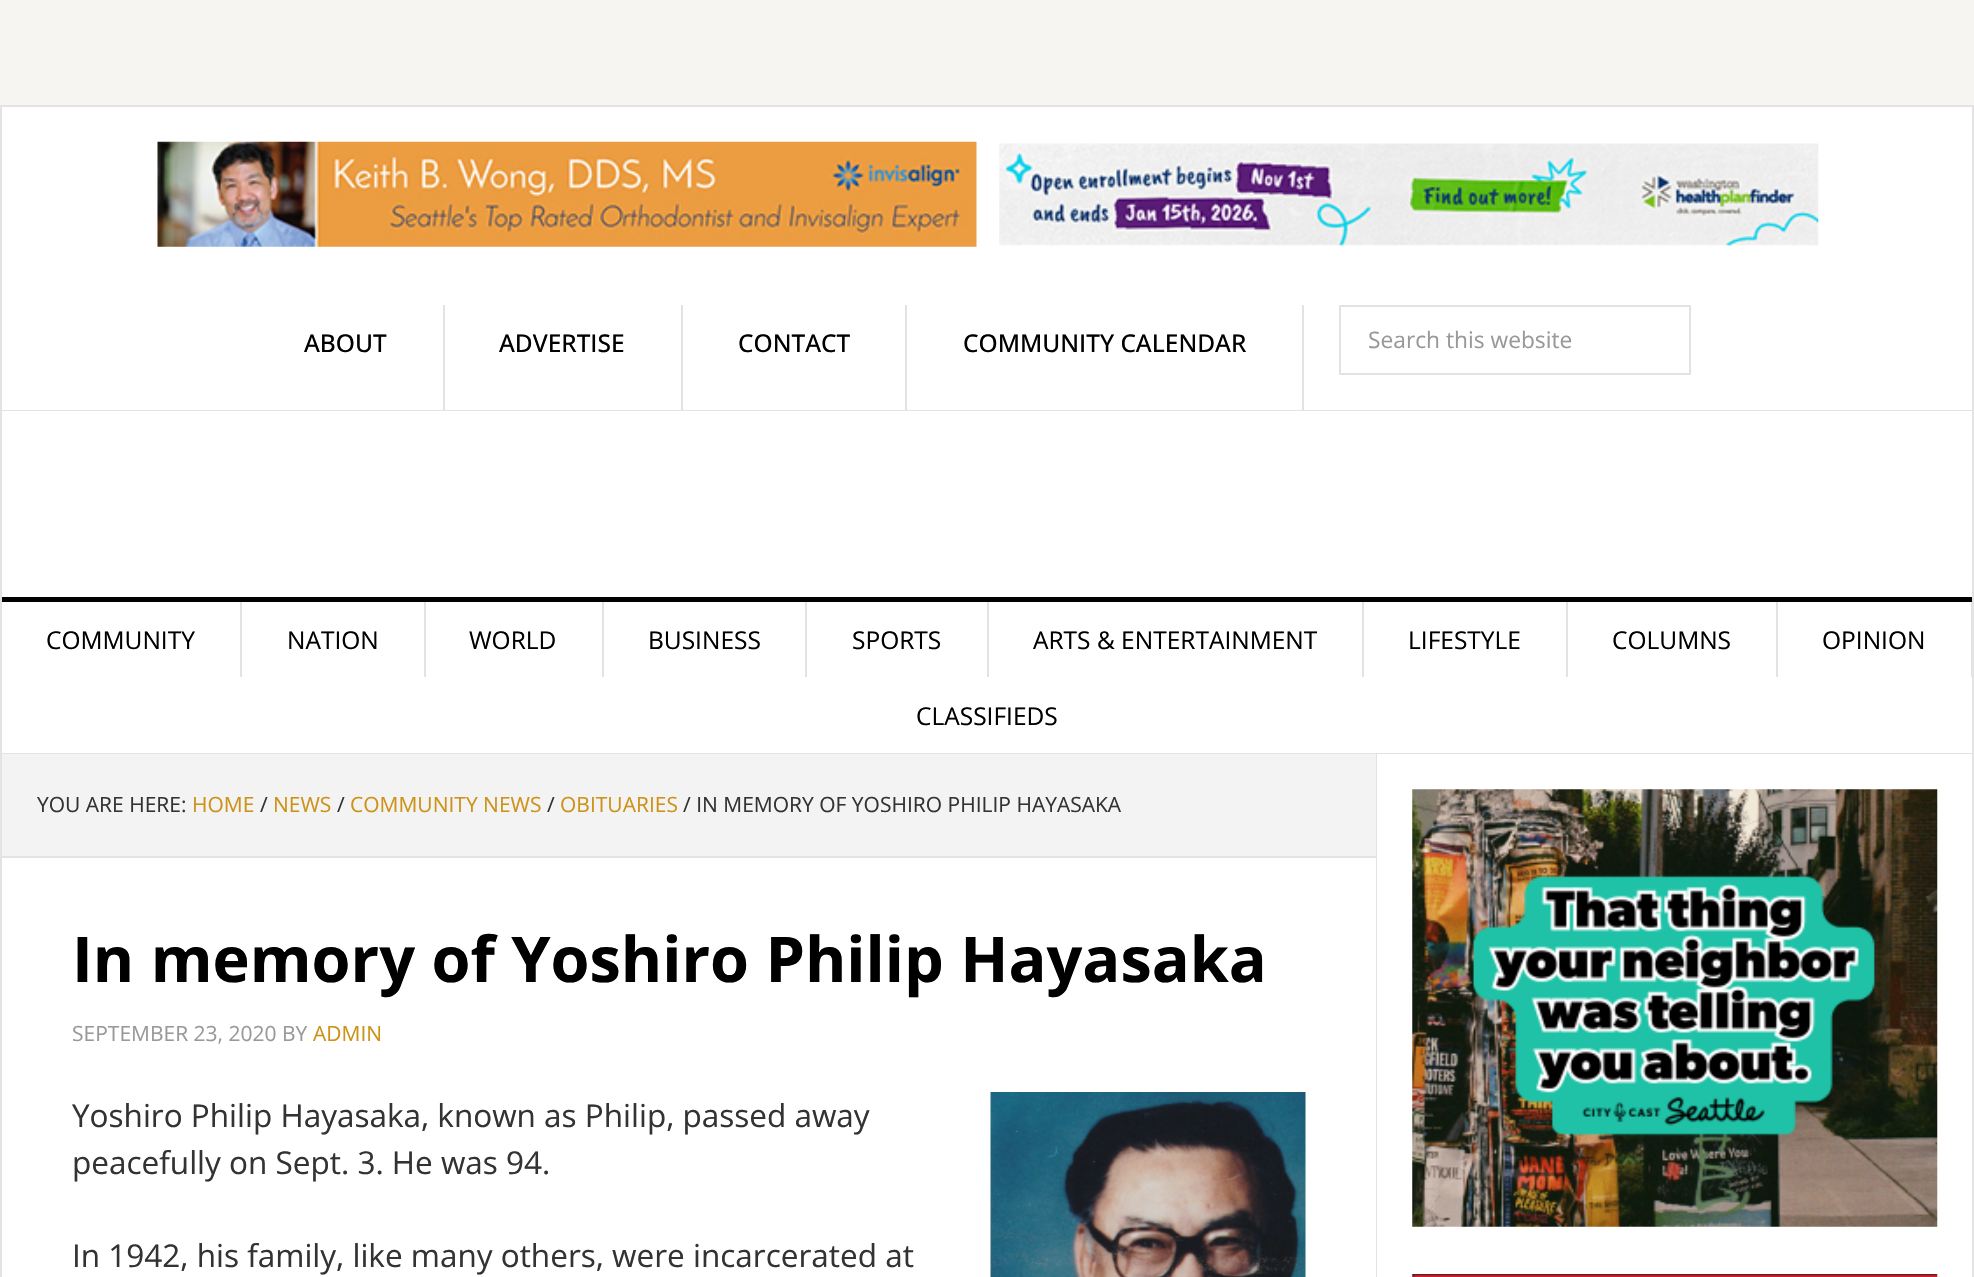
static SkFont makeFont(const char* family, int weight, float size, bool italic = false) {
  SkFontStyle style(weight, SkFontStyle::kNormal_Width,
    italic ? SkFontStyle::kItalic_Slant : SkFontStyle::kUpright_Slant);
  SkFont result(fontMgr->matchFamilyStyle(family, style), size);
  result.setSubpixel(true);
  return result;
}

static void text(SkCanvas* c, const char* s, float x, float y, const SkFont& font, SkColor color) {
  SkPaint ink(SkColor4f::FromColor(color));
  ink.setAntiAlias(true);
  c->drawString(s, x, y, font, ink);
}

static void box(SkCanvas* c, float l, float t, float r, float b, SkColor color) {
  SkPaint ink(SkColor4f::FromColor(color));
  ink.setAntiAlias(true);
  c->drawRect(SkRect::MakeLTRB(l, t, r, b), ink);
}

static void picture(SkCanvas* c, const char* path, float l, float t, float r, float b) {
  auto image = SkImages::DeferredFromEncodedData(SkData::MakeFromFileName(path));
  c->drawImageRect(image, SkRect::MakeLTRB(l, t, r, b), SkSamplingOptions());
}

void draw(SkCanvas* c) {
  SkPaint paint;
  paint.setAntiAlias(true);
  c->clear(0xfff6f5f2);
  paint.setColor(0xffffffff);
  c->drawRect(SkRect::MakeLTRB(1, 106, 1973, 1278), paint);
  paint.setStyle(SkPaint::kStroke_Style);
  paint.setStrokeWidth(2);
  paint.setColor(0xffe3e3e3);
  c->drawRect(SkRect::MakeLTRB(1, 106, 1973, 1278), paint);
  picture(c, "img_01.png", 157, 141, 977, 247);
  picture(c, "img_02.png", 999, 143, 1819, 246);
  box(c, 2, 410, 1972, 411, 0xffe3e3e3);
  box(c, 443, 305, 445, 410, 0xffe3e3e3);
  SkFont face1 = makeFont("Open Sans", 500, 24.5f);
  text(c, "ABOUT", 304, 352, face1, 0xff000000);
  box(c, 681, 305, 683, 410, 0xffe3e3e3);
  text(c, "ADVERTISE", 499, 352, face1, 0xff000000);
  box(c, 905, 305, 907, 410, 0xffe3e3e3);
  text(c, "CONTACT", 738, 352, face1, 0xff000000);
  box(c, 1302, 305, 1304, 410, 0xffe3e3e3);
  text(c, "COMMUNITY CALENDAR", 963, 352, face1, 0xff000000);
  c->drawRect(SkRect::MakeLTRB(1340, 306, 1690, 374), paint);
  SkFont face2 = makeFont("Open Sans", 400, 22.75f);
  text(c, "Search this website", 1368, 348, face2, 0xff999999);
  box(c, 2, 597, 1972, 602, 0xff000000);
  box(c, 2, 753, 1972, 754, 0xffe3e3e3);
  box(c, 240, 602, 242, 677, 0xffe3e3e3);
  SkFont face3 = makeFont("Open Sans", 400, 24.5f);
  text(c, "COMMUNITY", 46, 649, face3, 0xff000000);
  box(c, 424, 602, 426, 677, 0xffe3e3e3);
  text(c, "NATION", 287, 649, face3, 0xff000000);
  box(c, 602, 602, 604, 677, 0xffe3e3e3);
  text(c, "WORLD", 469, 649, face3, 0xff000000);
  box(c, 805, 602, 807, 677, 0xffe3e3e3);
  text(c, "BUSINESS", 648, 649, face3, 0xff000000);
  box(c, 987, 602, 989, 677, 0xffe3e3e3);
  text(c, "SPORTS", 852, 649, face3, 0xff000000);
  box(c, 1362, 602, 1364, 677, 0xffe3e3e3);
  text(c, "ARTS & ENTERTAINMENT", 1033, 649, face3, 0xff000000);
  box(c, 1566, 602, 1568, 677, 0xffe3e3e3);
  text(c, "LIFESTYLE", 1408, 649, face3, 0xff000000);
  box(c, 1776, 602, 1778, 677, 0xffe3e3e3);
  text(c, "COLUMNS", 1612, 649, face3, 0xff000000);
  box(c, 1971, 602, 1972, 677, 0xffe3e3e3);
  text(c, "OPINION", 1822, 649, face3, 0xff000000);
  text(c, "CLASSIFIEDS", 916, 725, face3, 0xff000000);
  box(c, 1376, 754, 1377, 1277, 0xffe3e3e3);
  box(c, 2, 754, 1376, 856, 0xfff3f3f3);
  box(c, 2, 856, 1376, 858, 0xffe3e3e3);
  SkFont face4 = makeFont("Open Sans", 400, 21);
  text(c, "YOU ARE HERE:", 37, 812, face4, 0xff333333);
  text(c, "HOME", 192, 812, face4, 0xffcc9318);
  text(c, "/", 260, 812, face4, 0xff333333);
  text(c, "NEWS", 273, 812, face4, 0xffcc9318);
  text(c, "/", 337, 812, face4, 0xff333333);
  text(c, "COMMUNITY NEWS", 350, 812, face4, 0xffcc9318);
  text(c, "/", 547, 812, face4, 0xff333333);
  text(c, "OBITUARIES", 560, 812, face4, 0xffcc9318);
  text(c, "/ IN MEMORY OF YOSHIRO PHILIP HAYASAKA", 683, 812, face4, 0xff333333);
  SkFont face5 = makeFont("Open Sans", 700, 63);
  text(c, "In memory of Yoshiro Philip Hayasaka", 72, 982, face5, 0xff000000);
  text(c, "SEPTEMBER 23, 2020 BY", 72, 1041, face4, 0xff999999);
  text(c, "ADMIN", 313, 1041, face4, 0xffcc9318);
  SkFont face6 = makeFont("Open Sans", 400, 31.5f);
  text(c, "Yoshiro Philip Hayasaka, known as Philip, passed away", 72, 1127, face6, 0xff333333);
  text(c, "peacefully on Sept. 3. He was 94.", 72, 1174, face6, 0xff333333);
  picture(c, "img_03.png", 990, 1092, 1306, 1277);
  text(c, "In 1942, his family, like many others, were incarcerated at", 72, 1267, face6, 0xff333333);
  picture(c, "img_04.png", 1412, 789, 1938, 1227);
  picture(c, "img_05.png", 1412, 1274, 1938, 1277);
}
